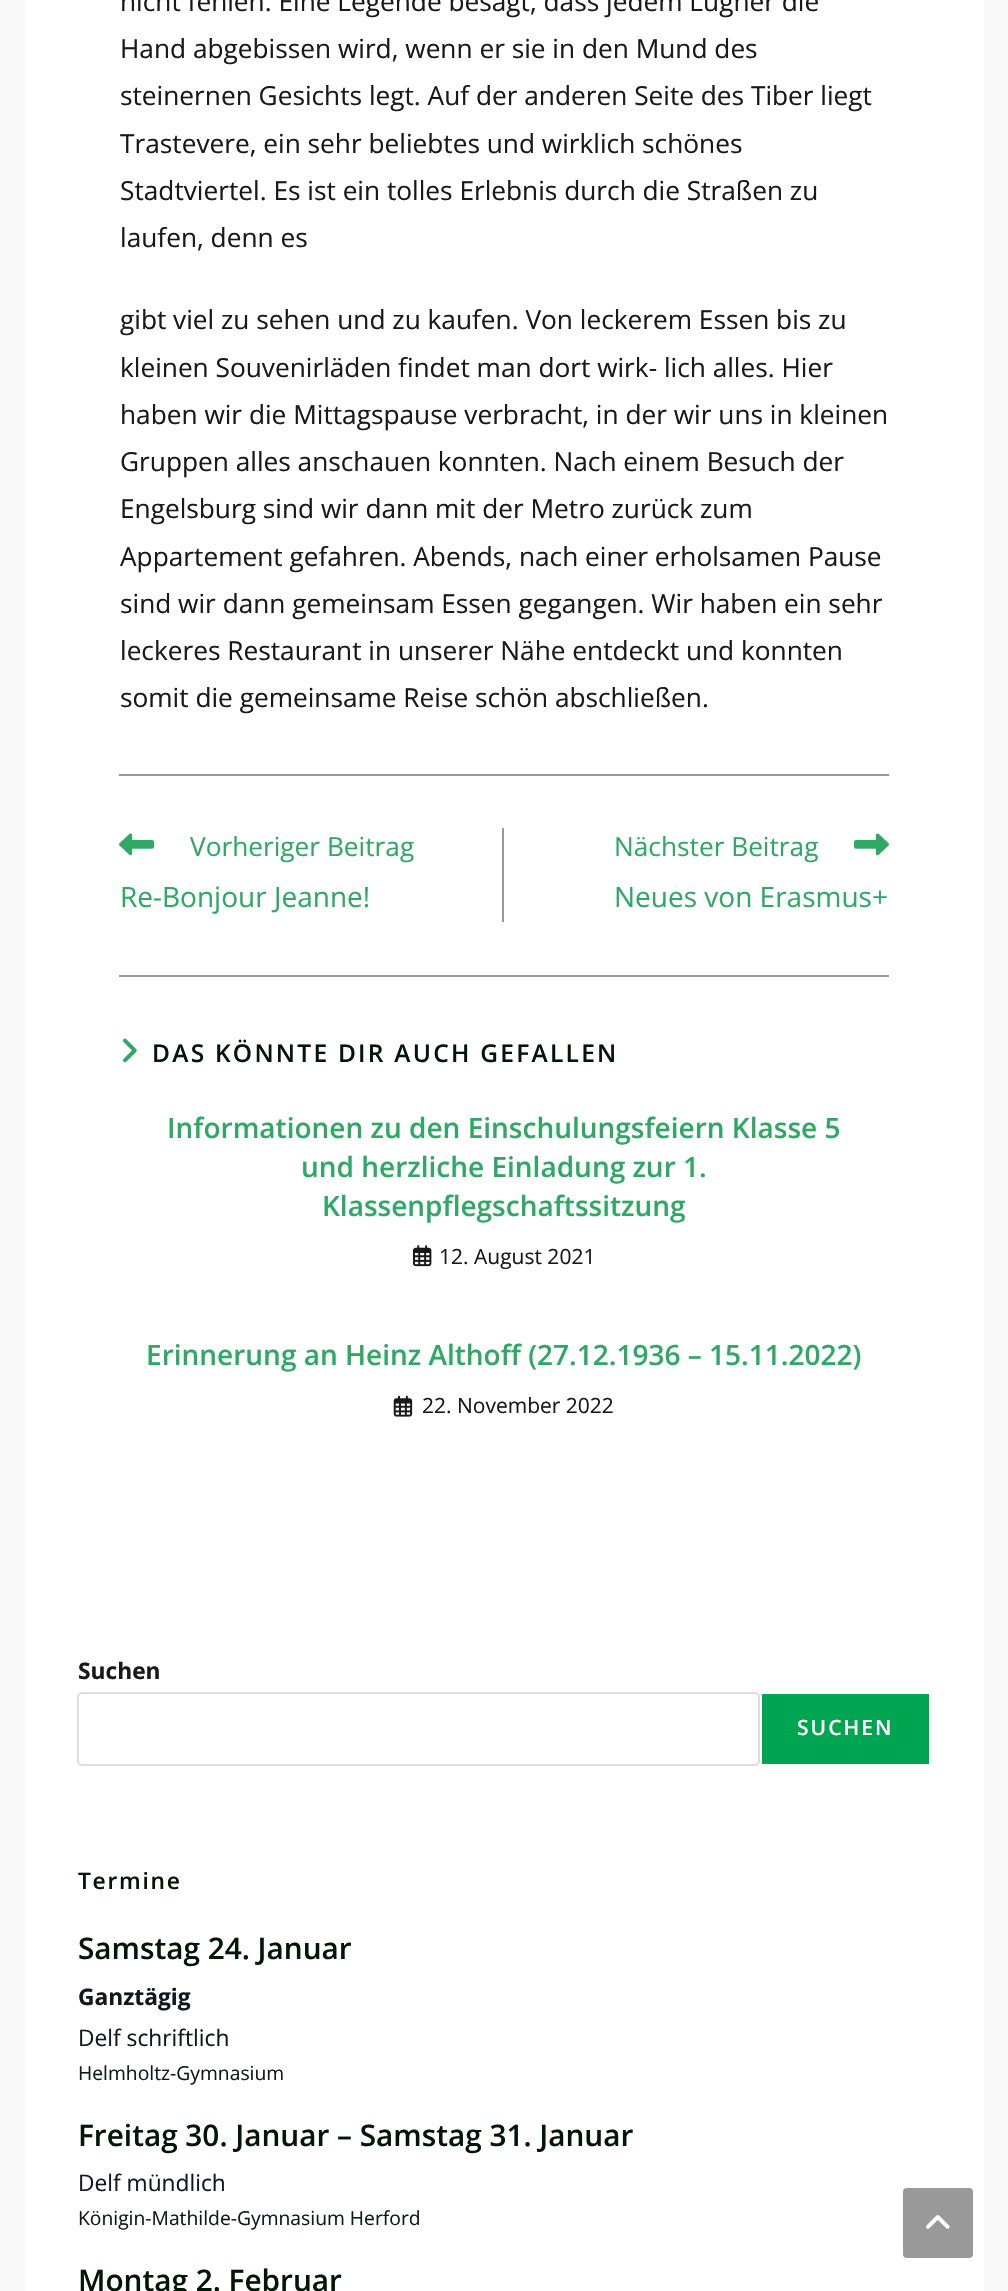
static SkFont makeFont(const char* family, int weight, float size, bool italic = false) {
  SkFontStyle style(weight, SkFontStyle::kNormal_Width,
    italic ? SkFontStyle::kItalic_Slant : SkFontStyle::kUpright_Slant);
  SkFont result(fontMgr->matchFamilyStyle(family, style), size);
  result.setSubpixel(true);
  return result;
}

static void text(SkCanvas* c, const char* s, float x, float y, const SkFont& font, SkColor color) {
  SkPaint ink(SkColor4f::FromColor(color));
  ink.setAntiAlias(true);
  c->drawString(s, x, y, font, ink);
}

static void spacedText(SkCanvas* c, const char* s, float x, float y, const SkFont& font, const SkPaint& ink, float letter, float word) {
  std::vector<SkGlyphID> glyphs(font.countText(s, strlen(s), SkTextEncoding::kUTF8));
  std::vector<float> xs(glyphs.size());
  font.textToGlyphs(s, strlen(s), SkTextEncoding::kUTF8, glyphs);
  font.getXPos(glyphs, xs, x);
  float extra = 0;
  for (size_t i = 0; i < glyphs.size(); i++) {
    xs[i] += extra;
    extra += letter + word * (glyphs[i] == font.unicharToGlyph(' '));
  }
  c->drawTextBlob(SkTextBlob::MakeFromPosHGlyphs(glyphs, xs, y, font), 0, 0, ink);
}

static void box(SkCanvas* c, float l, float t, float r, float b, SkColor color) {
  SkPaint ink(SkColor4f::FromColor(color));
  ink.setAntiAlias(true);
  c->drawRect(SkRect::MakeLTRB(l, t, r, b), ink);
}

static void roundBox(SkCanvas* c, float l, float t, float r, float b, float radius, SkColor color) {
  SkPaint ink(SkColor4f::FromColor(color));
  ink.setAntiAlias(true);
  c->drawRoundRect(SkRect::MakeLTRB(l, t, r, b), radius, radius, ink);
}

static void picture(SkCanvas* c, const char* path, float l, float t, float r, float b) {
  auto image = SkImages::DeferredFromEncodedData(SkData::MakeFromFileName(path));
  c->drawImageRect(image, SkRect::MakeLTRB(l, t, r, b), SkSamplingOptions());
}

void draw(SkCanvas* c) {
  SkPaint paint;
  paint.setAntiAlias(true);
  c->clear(0xfff9f9f9);
  box(c, 25, 0, 984, 2291, 0xfffefffe);
  SkFont face1 = makeFont("Open Sans", 400, 26.25f);
  text(c, "nicht fehlen. Eine Legende besagt, dass jedem Lügner die", 120, 11, face1, 0xff191919);
  text(c, "Hand abgebissen wird, wenn er sie in den Mund des", 120, 58, face1, 0xff191919);
  text(c, "steinernen Gesichts legt. Auf der anderen Seite des Tiber liegt", 120, 105, face1, 0xff191919);
  text(c, "Trastevere, ein sehr beliebtes und wirklich schönes", 120, 153, face1, 0xff191919);
  text(c, "Stadtviertel. Es ist ein tolles Erlebnis durch die Straßen zu", 120, 200, face1, 0xff191919);
  text(c, "laufen, denn es", 120, 247, face1, 0xff191919);
  text(c, "gibt viel zu sehen und zu kaufen. Von leckerem Essen bis zu", 120, 329, face1, 0xff191919);
  text(c, "kleinen Souvenirläden findet man dort wirk- lich alles. Hier", 120, 377, face1, 0xff191919);
  text(c, "haben wir die Mittagspause verbracht, in der wir uns in kleinen", 120, 424, face1, 0xff191919);
  text(c, "Gruppen alles anschauen konnten. Nach einem Besuch der", 120, 471, face1, 0xff191919);
  text(c, "Engelsburg sind wir dann mit der Metro zurück zum", 120, 518, face1, 0xff191919);
  text(c, "Appartement gefahren. Abends, nach einer erholsamen Pause", 120, 566, face1, 0xff191919);
  text(c, "sind wir dann gemeinsam Essen gegangen. Wir haben ein sehr", 120, 613, face1, 0xff191919);
  text(c, "leckeres Restaurant in unserer Nähe entdeckt und konnten", 120, 660, face1, 0xff191919);
  text(c, "somit die gemeinsame Reise schön abschließen.", 120, 707, face1, 0xff191919);
  box(c, 119, 774, 889, 776, 0xff999999);
  box(c, 502, 828, 504, 922, 0xff999999);
  picture(c, "img_01.png", 119, 833, 154, 856);
  text(c, "Vorheriger Beitrag", 190, 856, face1, 0xff30a865);
  SkFont face2 = makeFont("Open Sans", 400, 28);
  text(c, "Re-Bonjour Jeanne!", 120, 907, face2, 0xff30a865);
  text(c, "Nächster Beitrag", 614, 856, face1, 0xff30a865);
  picture(c, "img_02.png", 854, 833, 889, 856);
  text(c, "Neues von Erasmus+", 614, 907, face2, 0xff30a865);
  box(c, 119, 975, 889, 977, 0xff999999);
  picture(c, "img_03.png", 122, 1038, 137, 1063);
  SkFont face3 = makeFont("Open Sans", 600, 24.5f);
  paint.setColor(0xff011706);
  spacedText(c, "DAS KÖNNTE DIR AUCH GEFALLEN", 152, 1062, face3, paint, 2.25f, 0);
  SkFont face4 = makeFont("Open Sans", 600, 28);
  text(c, "Informationen zu den Einschulungsfeiern Klasse 5", 167, 1138, face4, 0xff30a865);
  text(c, "und herzliche Einladung zur 1.", 301, 1177, face4, 0xff30a865);
  text(c, "Klassenpflegschaftssitzung", 322, 1216, face4, 0xff30a865);
  picture(c, "img_04.png", 413, 1245, 432, 1267);
  SkFont face5 = makeFont("Open Sans", 400, 21);
  text(c, "12. August 2021", 439, 1264, face5, 0xff191919);
  text(c, "Erinnerung an Heinz Althoff (27.12.1936 – 15.11.2022)", 146, 1365, face4, 0xff30a865);
  picture(c, "img_05.png", 393, 1395, 413, 1417);
  text(c, "22. November 2022", 422, 1413, face5, 0xff191919);
  SkFont face6 = makeFont("Open Sans", 700, 22.75f);
  text(c, "Suchen", 78, 1679, face6, 0xff191919);
  paint.setStyle(SkPaint::kStroke_Style);
  paint.setStrokeWidth(2);
  paint.setColor(0xffdddddd);
  c->drawRoundRect(SkRect::MakeLTRB(78, 1693, 759, 1765), 4, 4, paint);
  box(c, 762, 1694, 929, 1764, 0xff00a551);
  SkFont face7 = makeFont("Open Sans", 600, 21);
  paint.setStyle(SkPaint::kFill_Style);
  paint.setColor(0xfffefffe);
  spacedText(c, "SUCHEN", 797, 1735, face7, paint, 2, 0);
  SkFont face8 = makeFont("Open Sans", 600, 22.75f);
  paint.setColor(0xff011706);
  spacedText(c, "Termine", 78, 1889, face8, paint, 1.75f, 0);
  SkFont face9 = makeFont("Open Sans", 600, 29.75f);
  text(c, "Samstag 24. Januar", 78, 1959, face9, 0xff011706);
  text(c, "Ganztägig", 78, 2005, face6, 0xff10181f);
  SkFont face10 = makeFont("Open Sans", 400, 22.75f);
  text(c, "Delf schriftlich", 78, 2046, face10, 0xff10181f);
  SkFont face11 = makeFont("Open Sans", 400, 19.3f);
  text(c, "Helmholtz-Gymnasium", 78, 2080, face11, 0xff10181f);
  text(c, "Freitag 30. Januar – Samstag 31. Januar", 78, 2146, face9, 0xff011706);
  text(c, "Delf mündlich", 78, 2191, face10, 0xff10181f);
  text(c, "Königin-Mathilde-Gymnasium Herford", 78, 2225, face11, 0xff10181f);
  text(c, "Montag 2. Februar", 78, 2291, face9, 0xff011706);
  roundBox(c, 903, 2188, 973, 2258, 4, 0xff989998);
  picture(c, "img_06.png", 926, 2215, 950, 2229);
}
